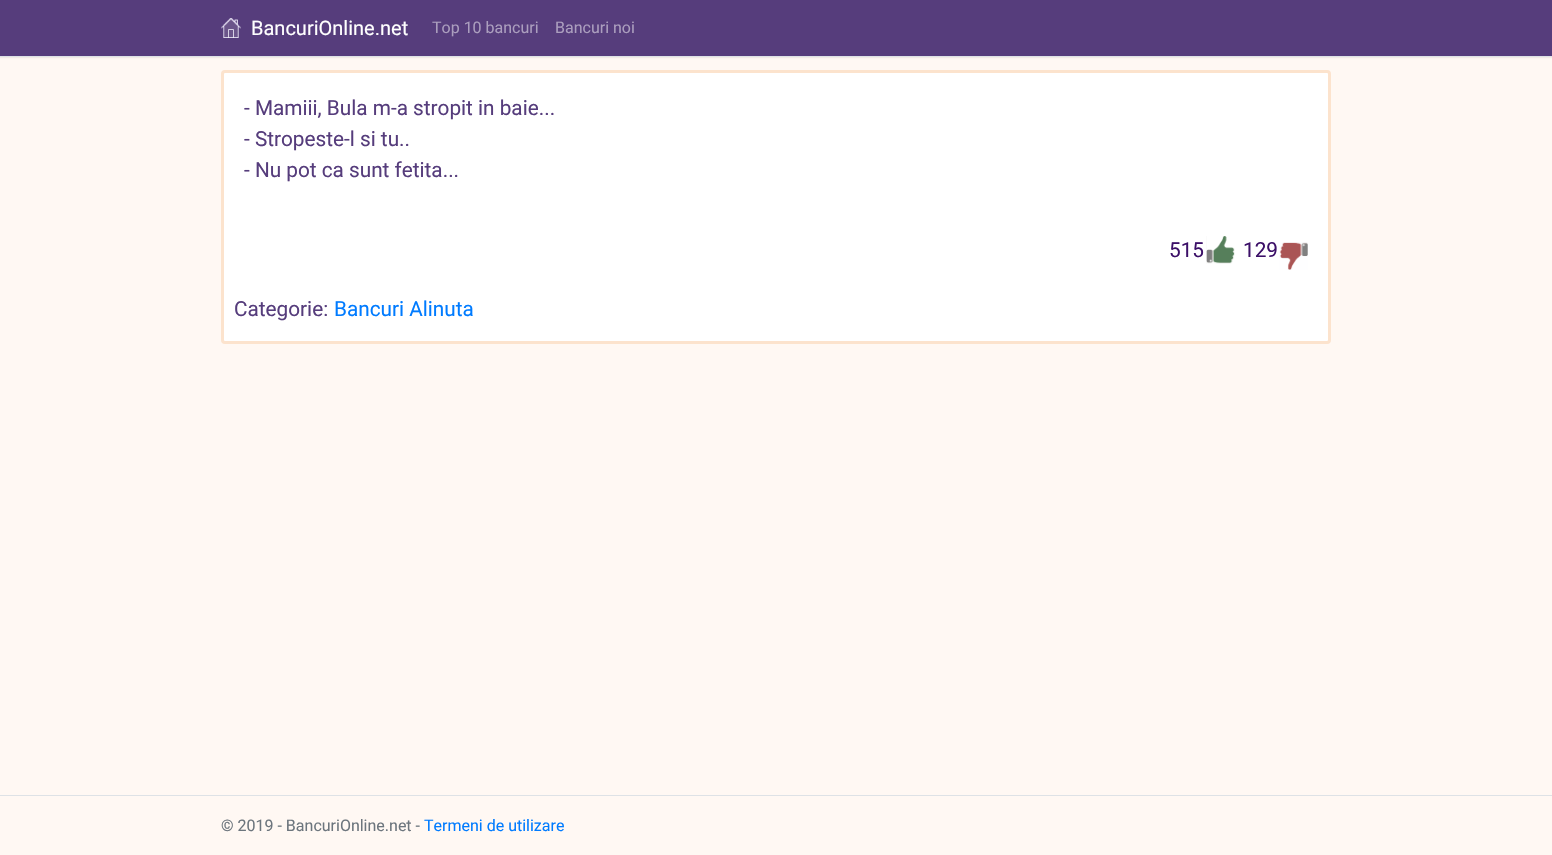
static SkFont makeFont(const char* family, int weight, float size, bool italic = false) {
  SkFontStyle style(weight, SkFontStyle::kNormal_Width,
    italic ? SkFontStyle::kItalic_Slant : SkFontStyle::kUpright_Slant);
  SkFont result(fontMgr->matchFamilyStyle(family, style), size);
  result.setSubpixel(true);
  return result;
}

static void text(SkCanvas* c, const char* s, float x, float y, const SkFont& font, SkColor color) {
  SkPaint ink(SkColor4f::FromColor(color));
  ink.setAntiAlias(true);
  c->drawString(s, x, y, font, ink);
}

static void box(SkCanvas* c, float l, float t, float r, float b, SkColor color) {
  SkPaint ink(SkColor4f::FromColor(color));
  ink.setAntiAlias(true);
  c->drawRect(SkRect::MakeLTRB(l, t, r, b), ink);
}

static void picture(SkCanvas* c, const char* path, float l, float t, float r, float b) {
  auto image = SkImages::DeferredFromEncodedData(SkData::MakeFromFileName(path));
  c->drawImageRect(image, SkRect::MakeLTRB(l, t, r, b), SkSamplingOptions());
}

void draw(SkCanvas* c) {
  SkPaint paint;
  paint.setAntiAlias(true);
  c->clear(0xfffff8f3);
  paint.setColor(0x0d000000);
  paint.setMaskFilter(SkMaskFilter::MakeBlur(kNormal_SkBlurStyle, 0.5f));
  c->drawRect(SkRect::MakeLTRB(0, 1, 1552, 58), paint);
  paint.setMaskFilter(nullptr);
  box(c, 0, 0, 1552, 56, 0xff563d7c);
  box(c, 0, 56, 1552, 57, 0xffdee2e6);
  picture(c, "img_01.png", 221, 18, 241, 38);
  SkFont face1 = makeFont("Roboto", 400, 20);
  text(c, "BancuriOnline.net", 251, 35, face1, 0xffffffff);
  SkFont face2 = makeFont("Roboto", 400, 16);
  text(c, "Top 10 bancuri", 432, 33, face2, 0xffab9ebe);
  text(c, "Bancuri noi", 555, 33, face2, 0xffab9ebe);
  paint.setColor(0xffffffff);
  c->drawRoundRect(SkRect::MakeLTRB(222.5f, 71.5f, 1329.5f, 342.5f), 2.5f, 2.5f, paint);
  paint.setStyle(SkPaint::kStroke_Style);
  paint.setStrokeWidth(3);
  paint.setColor(0xfffce3cd);
  c->drawRoundRect(SkRect::MakeLTRB(222.5f, 71.5f, 1329.5f, 342.5f), 2.5f, 2.5f, paint);
  SkFont face3 = makeFont("Roboto", 400, 20.75f);
  text(c, "- Mamiii, Bula m-a stropit in baie...", 244, 115, face3, 0xff563d7c);
  text(c, "- Stropeste-l si tu..", 244, 146, face3, 0xff563d7c);
  text(c, "- Nu pot ca sunt fetita...", 244, 177, face3, 0xff563d7c);
  text(c, "515", 1169, 257, face3, 0xff3c1068);
  picture(c, "img_02.png", 1206, 236, 1235, 264);
  text(c, "129", 1243, 257, face3, 0xff3c1068);
  picture(c, "img_03.png", 1279, 242, 1308, 270);
  text(c, "Categorie:", 234, 316, face3, 0xff563d7c);
  text(c, "Bancuri Alinuta", 334, 316, face3, 0xff007bff);
  box(c, 0, 795, 1552, 796, 0xffdee2e6);
  text(c, "© 2019 - BancuriOnline.net -", 221, 831, face2, 0xff6c757d);
  text(c, "Termeni de utilizare", 424, 831, face2, 0xff007bff);
}
